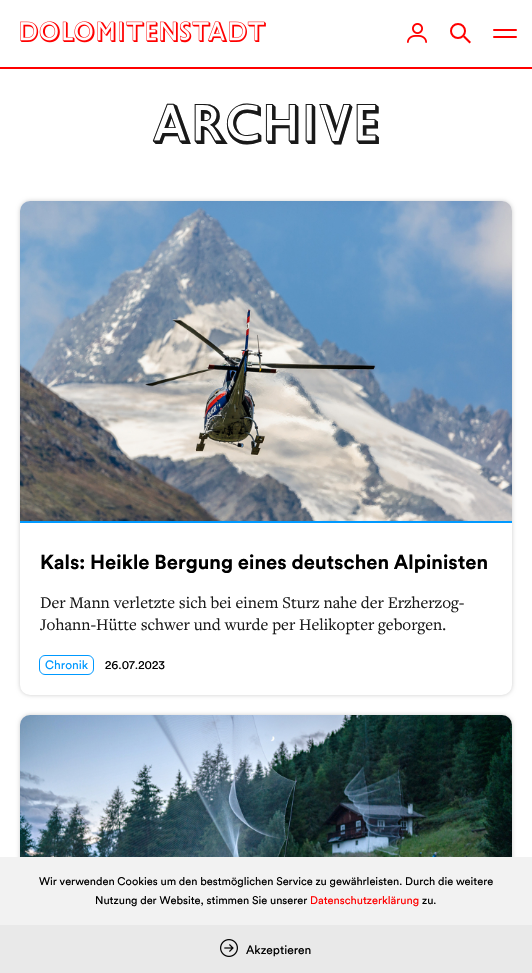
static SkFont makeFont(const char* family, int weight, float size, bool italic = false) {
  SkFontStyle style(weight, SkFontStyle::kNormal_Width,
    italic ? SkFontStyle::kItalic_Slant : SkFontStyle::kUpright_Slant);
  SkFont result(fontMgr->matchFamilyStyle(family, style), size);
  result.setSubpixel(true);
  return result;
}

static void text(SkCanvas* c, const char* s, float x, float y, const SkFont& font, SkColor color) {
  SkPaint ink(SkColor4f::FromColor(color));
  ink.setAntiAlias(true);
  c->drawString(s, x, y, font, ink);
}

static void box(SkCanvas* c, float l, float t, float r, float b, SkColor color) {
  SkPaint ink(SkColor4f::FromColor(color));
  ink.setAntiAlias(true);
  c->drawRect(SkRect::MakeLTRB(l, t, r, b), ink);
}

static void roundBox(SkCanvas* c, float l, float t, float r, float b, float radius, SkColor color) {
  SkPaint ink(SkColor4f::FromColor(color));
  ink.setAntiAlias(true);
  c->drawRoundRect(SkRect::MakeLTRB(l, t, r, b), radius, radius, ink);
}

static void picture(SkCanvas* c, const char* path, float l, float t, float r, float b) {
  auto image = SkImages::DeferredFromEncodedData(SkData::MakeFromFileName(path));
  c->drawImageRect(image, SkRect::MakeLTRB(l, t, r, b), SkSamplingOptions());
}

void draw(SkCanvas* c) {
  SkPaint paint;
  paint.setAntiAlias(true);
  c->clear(0xffffffff);
  box(c, 0, 67, 532, 69, 0xffff0000);
  picture(c, "img_01.png", 20, 21, 266, 43);
  picture(c, "img_02.png", 407, 23, 427, 43);
  paint.setStyle(SkPaint::kStroke_Style);
  paint.setStrokeWidth(2);
  paint.setColor(0xffff0000);
  c->drawCircle(458, 31, 7, paint);
  paint.setStyle(SkPaint::kFill_Style);
  c->drawPath(SkPathBuilder().moveTo(464.5f, 35.5f).lineTo(471, 42).lineTo(469.5f, 43.5f).lineTo(463, 37).close().detach(), paint);
  roundBox(c, 493, 29, 517, 31, 1, 0xffff0000);
  roundBox(c, 493, 36, 517, 38, 1, 0xffff0000);
  SkFont face1 = makeFont("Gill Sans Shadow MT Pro", 400, 53);
  text(c, "Archive", 152, 144, face1, 0xff191919);
  paint.setColor(0x33000000);
  paint.setMaskFilter(SkMaskFilter::MakeBlur(kNormal_SkBlurStyle, 2));
  c->drawRoundRect(SkRect::MakeLTRB(20, 201, 512, 695), 10, 10, paint);
  paint.setMaskFilter(nullptr);
  roundBox(c, 20, 201, 512, 695, 10, 0xffffffff);
  paint.setColor(0xffeeeeee);
  c->drawPath(SkPathBuilder().moveTo(30, 201).lineTo(502, 201).cubicTo(507.5f, 201, 512, 205.5f, 512, 211).lineTo(512, 521).lineTo(20, 521).lineTo(20, 211).cubicTo(20, 205.5f, 24.5f, 201, 30, 201).close().detach(), paint);
  picture(c, "img_03.png", 20, 201, 512, 521);
  box(c, 20, 521, 512, 523, 0xff0099ff);
  SkFont face2 = makeFont("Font", 700, 20);
  text(c, "Kals: Heikle Bergung eines deutschen Alpinisten", 40, 569, face2, 0xff000000);
  SkFont face3 = makeFont("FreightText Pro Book", 400, 17);
  text(c, "Der Mann verletzte sich bei einem Sturz nahe der Erzherzog-", 40, 608, face3, 0xff191919);
  text(c, "Johann-Hütte schwer und wurde per Helikopter geborgen.", 40, 630, face3, 0xff191919);
  paint.setStyle(SkPaint::kStroke_Style);
  paint.setStrokeWidth(1);
  paint.setColor(0xff0099ff);
  c->drawRoundRect(SkRect::MakeLTRB(39.5f, 655.5f, 93.5f, 674.5f), 5.5f, 5.5f, paint);
  SkFont face4 = makeFont("Circular", 400, 12);
  text(c, "Chronik", 45, 669, face4, 0xff0099ff);
  text(c, "26.07.2023", 105, 669, face4, 0xff000000);
  paint.setStyle(SkPaint::kFill_Style);
  paint.setColor(0x33000000);
  paint.setMaskFilter(SkMaskFilter::MakeBlur(kNormal_SkBlurStyle, 2));
  c->drawRoundRect(SkRect::MakeLTRB(20, 715, 512, 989), 10, 10, paint);
  paint.setMaskFilter(nullptr);
  paint.setColor(0xffeeeeee);
  c->drawPath(SkPathBuilder().moveTo(30, 715).lineTo(502, 715).cubicTo(507.5f, 715, 512, 719.5f, 512, 725).lineTo(512, 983).lineTo(20, 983).lineTo(20, 725).cubicTo(20, 719.5f, 24.5f, 715, 30, 715).close().detach(), paint);
  picture(c, "img_04.png", 20, 715, 512, 857);
  box(c, 0, 857, 532, 925, 0xfff2f2f2);
  SkFont face5 = makeFont("Circular", 400, 11);
  text(c, "Wir verwenden Cookies um den bestmöglichen Service zu gewährleisten. Durch die weitere", 39, 885, face5, 0xff000000);
  text(c, "Nutzung der Website, stimmen Sie unserer", 95, 904, face5, 0xff000000);
  text(c, "Datenschutzerklärung", 310, 904, face5, 0xffff0000);
  text(c, "zu.", 422, 904, face5, 0xff000000);
  box(c, 0, 925, 532, 973, 0xffe9e9e9);
  picture(c, "img_05.png", 220, 939, 238, 957);
  text(c, "Akzeptieren", 246, 954, face4, 0xff000000);
}
